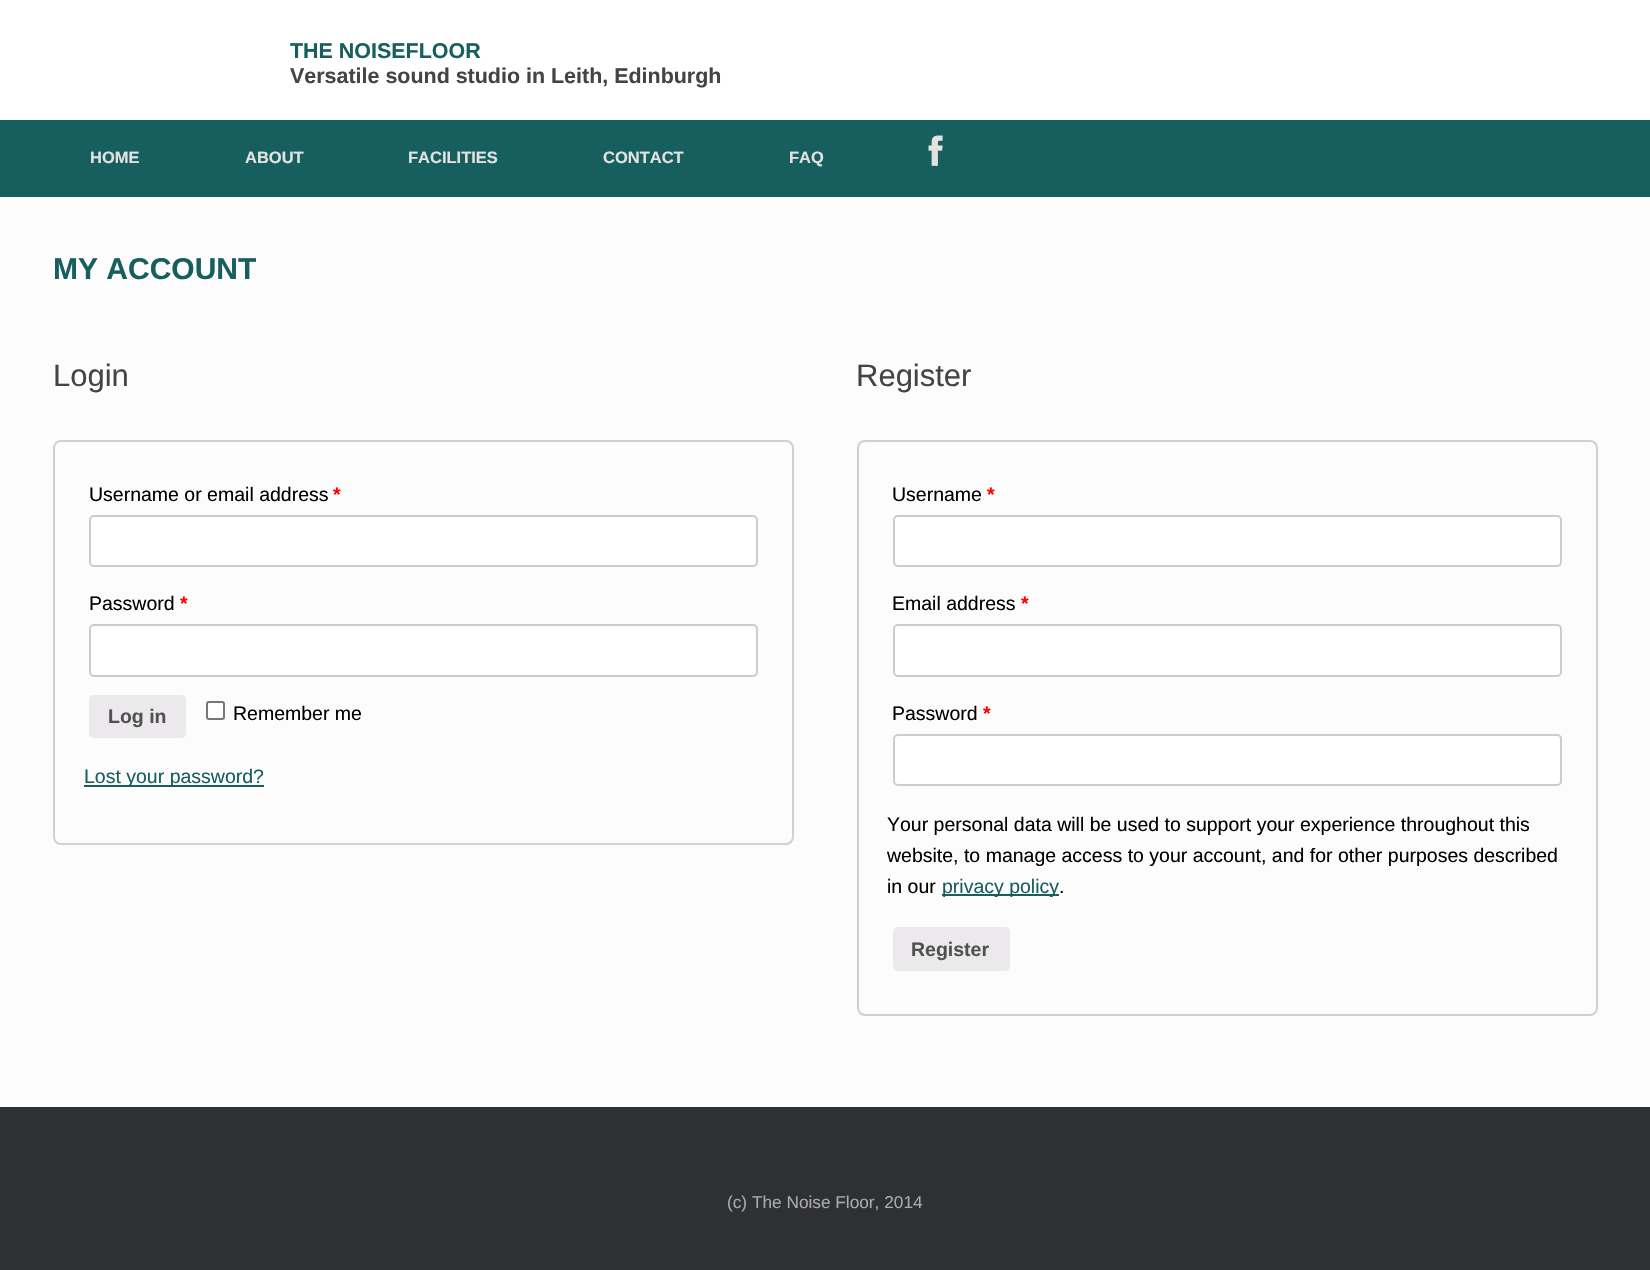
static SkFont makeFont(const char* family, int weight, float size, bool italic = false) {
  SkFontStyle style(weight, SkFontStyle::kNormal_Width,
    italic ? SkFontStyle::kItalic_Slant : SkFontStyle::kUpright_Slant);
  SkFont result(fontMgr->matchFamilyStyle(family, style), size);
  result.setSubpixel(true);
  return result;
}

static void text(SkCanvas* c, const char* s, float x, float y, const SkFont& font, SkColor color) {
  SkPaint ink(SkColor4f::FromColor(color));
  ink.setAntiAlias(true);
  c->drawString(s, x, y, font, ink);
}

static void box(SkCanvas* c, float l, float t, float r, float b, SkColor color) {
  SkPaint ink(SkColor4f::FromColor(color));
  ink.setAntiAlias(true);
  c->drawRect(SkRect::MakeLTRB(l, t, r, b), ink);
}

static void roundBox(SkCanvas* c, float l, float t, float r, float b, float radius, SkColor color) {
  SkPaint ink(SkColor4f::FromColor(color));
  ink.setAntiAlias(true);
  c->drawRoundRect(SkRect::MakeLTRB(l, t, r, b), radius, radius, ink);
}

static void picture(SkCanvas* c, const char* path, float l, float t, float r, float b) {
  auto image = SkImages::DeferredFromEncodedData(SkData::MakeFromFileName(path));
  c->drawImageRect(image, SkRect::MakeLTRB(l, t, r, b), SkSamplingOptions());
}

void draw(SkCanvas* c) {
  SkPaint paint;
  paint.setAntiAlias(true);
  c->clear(0xff2f3033);
  box(c, 0, 0, 1650, 120, 0xffffffff);
  SkFont face1 = makeFont("Liberation Sans", 700, 21.45f);
  text(c, "THE NOISEFLOOR", 290, 58, face1, 0xff175e5f);
  text(c, "Versatile sound studio in Leith, Edinburgh", 290, 83, face1, 0xff444444);
  box(c, 0, 120, 1650, 197, 0xff175e5f);
  SkFont face2 = makeFont("Liberation Sans", 700, 16.5f);
  text(c, "HOME", 90, 163, face2, 0xffe2e2e2);
  text(c, "ABOUT", 245, 163, face2, 0xffe2e2e2);
  text(c, "FACILITIES", 408, 163, face2, 0xffe2e2e2);
  text(c, "CONTACT", 603, 163, face2, 0xffe2e2e2);
  text(c, "FAQ", 789, 163, face2, 0xffe2e2e2);
  picture(c, "img_01.png", 928, 135, 943, 166);
  box(c, 0, 197, 1650, 1107, 0xfffcfcfc);
  SkFont face3 = makeFont("Liberation Sans", 700, 30);
  text(c, "MY ACCOUNT", 53, 279, face3, 0xff175e5f);
  SkFont face4 = makeFont("Liberation Sans", 400, 31);
  text(c, "Login", 53, 386, face4, 0xff444444);
  paint.setStyle(SkPaint::kStroke_Style);
  paint.setStrokeWidth(2);
  paint.setColor(0xffd3ced2);
  c->drawRoundRect(SkRect::MakeLTRB(54, 441, 793, 844), 7, 7, paint);
  SkFont face5 = makeFont("Liberation Sans", 400, 19.5f);
  text(c, "Username or email address", 89, 501, face5, 0xff000000);
  SkFont face6 = makeFont("Liberation Sans", 700, 19.5f);
  text(c, "*", 333, 501, face6, 0xffff0000);
  paint.setStyle(SkPaint::kFill_Style);
  paint.setColor(0xffffffff);
  c->drawRoundRect(SkRect::MakeLTRB(90, 516, 757, 566), 4, 4, paint);
  paint.setStyle(SkPaint::kStroke_Style);
  paint.setColor(0xffcccccc);
  c->drawRoundRect(SkRect::MakeLTRB(90, 516, 757, 566), 4, 4, paint);
  text(c, "Password", 89, 610, face5, 0xff000000);
  text(c, "*", 180, 610, face6, 0xffff0000);
  paint.setStyle(SkPaint::kFill_Style);
  paint.setColor(0xffffffff);
  c->drawRoundRect(SkRect::MakeLTRB(90, 625, 757, 676), 4, 4, paint);
  paint.setStyle(SkPaint::kStroke_Style);
  paint.setColor(0xffcccccc);
  c->drawRoundRect(SkRect::MakeLTRB(90, 625, 757, 676), 4, 4, paint);
  roundBox(c, 89, 695, 186, 738, 5, 0xffebe9eb);
  text(c, "Log in", 108, 723, face6, 0xff515151);
  paint.setStyle(SkPaint::kFill_Style);
  paint.setColor(0xffffffff);
  c->drawRoundRect(SkRect::MakeLTRB(207, 702, 224, 719), 2, 2, paint);
  paint.setStyle(SkPaint::kStroke_Style);
  paint.setColor(0xff767676);
  c->drawRoundRect(SkRect::MakeLTRB(207, 702, 224, 719), 2, 2, paint);
  text(c, "Remember me", 233, 720, face5, 0xff000000);
  box(c, 84, 785, 264, 787, 0xff175e5f);
  text(c, "Lost your password?", 84, 783, face5, 0xff175e5f);
  text(c, "Register", 856, 386, face4, 0xff444444);
  paint.setColor(0xffd3ced2);
  c->drawRoundRect(SkRect::MakeLTRB(858, 441, 1597, 1015), 7, 7, paint);
  text(c, "Username", 892, 501, face5, 0xff000000);
  text(c, "*", 987, 501, face6, 0xffff0000);
  paint.setStyle(SkPaint::kFill_Style);
  paint.setColor(0xffffffff);
  c->drawRoundRect(SkRect::MakeLTRB(894, 516, 1561, 566), 4, 4, paint);
  paint.setStyle(SkPaint::kStroke_Style);
  paint.setColor(0xffcccccc);
  c->drawRoundRect(SkRect::MakeLTRB(894, 516, 1561, 566), 4, 4, paint);
  text(c, "Email address", 892, 610, face5, 0xff000000);
  text(c, "*", 1021, 610, face6, 0xffff0000);
  paint.setStyle(SkPaint::kFill_Style);
  paint.setColor(0xffffffff);
  c->drawRoundRect(SkRect::MakeLTRB(894, 625, 1561, 676), 4, 4, paint);
  paint.setStyle(SkPaint::kStroke_Style);
  paint.setColor(0xffcccccc);
  c->drawRoundRect(SkRect::MakeLTRB(894, 625, 1561, 676), 4, 4, paint);
  text(c, "Password", 892, 720, face5, 0xff000000);
  text(c, "*", 983, 720, face6, 0xffff0000);
  paint.setStyle(SkPaint::kFill_Style);
  paint.setColor(0xffffffff);
  c->drawRoundRect(SkRect::MakeLTRB(894, 735, 1561, 785), 4, 4, paint);
  paint.setStyle(SkPaint::kStroke_Style);
  paint.setColor(0xffcccccc);
  c->drawRoundRect(SkRect::MakeLTRB(894, 735, 1561, 785), 4, 4, paint);
  text(c, "Your personal data will be used to support your experience throughout this", 887, 831, face5, 0xff000000);
  text(c, "website, to manage access to your account, and for other purposes described", 887, 862, face5, 0xff000000);
  text(c, "in our", 887, 893, face5, 0xff000000);
  box(c, 942, 894, 1059, 896, 0xff175e5f);
  text(c, "privacy policy", 942, 893, face5, 0xff175e5f);
  text(c, ".", 1059, 893, face5, 0xff000000);
  roundBox(c, 893, 927, 1010, 971, 5, 0xffebe9eb);
  text(c, "Register", 911, 956, face6, 0xff515151);
  SkFont face7 = makeFont("Liberation Sans", 400, 17.25f);
  text(c, "(c) The Noise Floor, 2014", 727, 1208, face7, 0xffaaaaaa);
}
